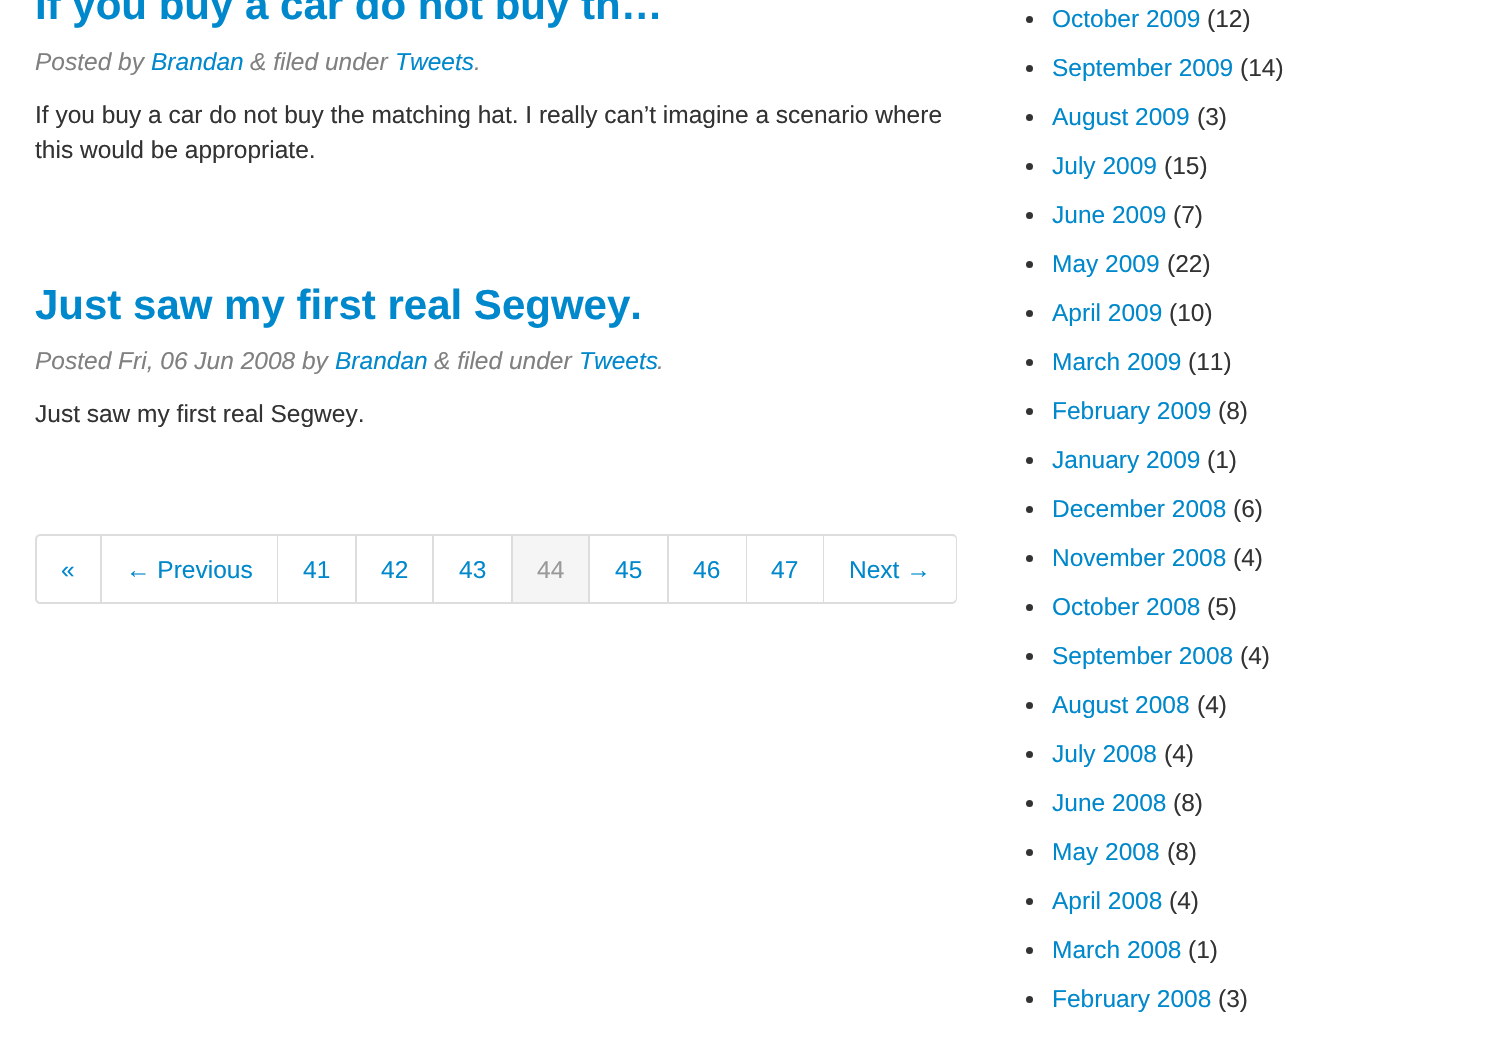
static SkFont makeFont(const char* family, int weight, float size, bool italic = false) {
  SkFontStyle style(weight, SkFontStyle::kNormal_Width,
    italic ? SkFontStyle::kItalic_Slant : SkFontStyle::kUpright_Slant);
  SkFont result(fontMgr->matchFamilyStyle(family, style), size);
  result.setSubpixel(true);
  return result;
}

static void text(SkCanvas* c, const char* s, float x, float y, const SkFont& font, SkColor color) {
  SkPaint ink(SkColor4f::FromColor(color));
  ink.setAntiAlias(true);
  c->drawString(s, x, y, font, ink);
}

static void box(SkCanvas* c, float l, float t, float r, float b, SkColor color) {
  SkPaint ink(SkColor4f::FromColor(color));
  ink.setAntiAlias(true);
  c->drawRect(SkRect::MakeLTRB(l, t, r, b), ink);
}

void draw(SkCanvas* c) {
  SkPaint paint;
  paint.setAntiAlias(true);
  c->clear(0xffffffff);
  SkFont face1 = makeFont("Liberation Sans", 700, 42);
  text(c, "If you buy a car do not buy th…", 35, 19, face1, 0xff0088cc);
  SkFont face2 = makeFont("Liberation Sans", 400, 24.5f, true);
  text(c, "Posted by", 35, 70, face2, 0xff808080);
  text(c, "Brandan", 151, 70, face2, 0xff0088cc);
  text(c, "& filed under", 250, 70, face2, 0xff808080);
  text(c, "Tweets", 395, 70, face2, 0xff0088cc);
  text(c, ".", 474, 70, face2, 0xff808080);
  SkFont face3 = makeFont("Liberation Sans", 400, 24.5f);
  text(c, "If you buy a car do not buy the matching hat. I really can’t imagine a scenario where", 35, 123, face3, 0xff333333);
  text(c, "this would be appropriate.", 35, 158, face3, 0xff333333);
  text(c, "Just saw my first real Segwey.", 35, 319, face1, 0xff0088cc);
  text(c, "Posted Fri, 06 Jun 2008 by", 35, 369, face2, 0xff808080);
  text(c, "Brandan", 335, 369, face2, 0xff0088cc);
  text(c, "& filed under", 434, 369, face2, 0xff808080);
  text(c, "Tweets", 579, 369, face2, 0xff0088cc);
  text(c, ".", 657, 369, face2, 0xff808080);
  text(c, "Just saw my first real Segwey.", 35, 422, face3, 0xff333333);
  paint.setStyle(SkPaint::kStroke_Style);
  paint.setStrokeWidth(2);
  paint.setColor(0xffdddddd);
  c->drawPath(SkPathBuilder().moveTo(40, 535).lineTo(101, 535).lineTo(101, 603).lineTo(40, 603).cubicTo(38, 603, 36, 601, 36, 599).lineTo(36, 539).cubicTo(36, 537, 38, 535, 40, 535).close().detach(), paint);
  text(c, "«", 61, 578, face3, 0xff0088cc);
  box(c, 102, 534, 824, 536, 0xffdddddd);
  box(c, 277, 534, 278, 604, 0xffdddddd);
  box(c, 102, 602, 278, 604, 0xffdddddd);
  text(c, "← Previous", 126, 578, face3, 0xff0088cc);
  box(c, 355, 534, 357, 604, 0xffdddddd);
  box(c, 278, 602, 357, 604, 0xffdddddd);
  text(c, "41", 303, 578, face3, 0xff0088cc);
  box(c, 432, 534, 434, 604, 0xffdddddd);
  box(c, 357, 602, 434, 604, 0xffdddddd);
  text(c, "42", 381, 578, face3, 0xff0088cc);
  box(c, 511, 534, 513, 604, 0xffdddddd);
  box(c, 434, 602, 513, 604, 0xffdddddd);
  text(c, "43", 459, 578, face3, 0xff0088cc);
  box(c, 513, 536, 588, 602, 0xfff5f5f5);
  box(c, 588, 534, 590, 604, 0xffdddddd);
  box(c, 513, 602, 590, 604, 0xffdddddd);
  text(c, "44", 537, 578, face3, 0xff999999);
  box(c, 667, 534, 669, 604, 0xffdddddd);
  box(c, 590, 602, 669, 604, 0xffdddddd);
  text(c, "45", 615, 578, face3, 0xff0088cc);
  box(c, 746, 534, 747, 604, 0xffdddddd);
  box(c, 669, 602, 747, 604, 0xffdddddd);
  text(c, "46", 693, 578, face3, 0xff0088cc);
  box(c, 823, 534, 824, 604, 0xffdddddd);
  box(c, 747, 602, 824, 604, 0xffdddddd);
  text(c, "47", 771, 578, face3, 0xff0088cc);
  paint.setStyle(SkPaint::kFill_Style);
  c->drawPath(SkPathBuilder(SkPathFillType::kEvenOdd).moveTo(824, 534).lineTo(952, 534).cubicTo(955, 534, 957, 536, 957, 539).lineTo(957, 598).cubicTo(957, 601, 955, 604, 952, 604).lineTo(824, 604).close().moveTo(824, 536).lineTo(952, 536).cubicTo(954, 536, 956, 537, 956, 539).lineTo(956, 598).cubicTo(956, 600, 954, 602, 952, 602).lineTo(824, 602).close().detach(), paint);
  text(c, "Next →", 849, 578, face3, 0xff0088cc);
  paint.setColor(0xff333333);
  c->drawCircle(1029.5f, 19.5f, 3.5f, paint);
  text(c, "October 2009", 1052, 27, face3, 0xff0088cc);
  text(c, "(12)", 1207, 27, face3, 0xff333333);
  c->drawCircle(1029.5f, 68.5f, 3.5f, paint);
  text(c, "September 2009", 1052, 76, face3, 0xff0088cc);
  text(c, "(14)", 1240, 76, face3, 0xff333333);
  c->drawCircle(1029.5f, 117.5f, 3.5f, paint);
  text(c, "August 2009", 1052, 125, face3, 0xff0088cc);
  text(c, "(3)", 1197, 125, face3, 0xff333333);
  c->drawCircle(1029.5f, 166.5f, 3.5f, paint);
  text(c, "July 2009", 1052, 174, face3, 0xff0088cc);
  text(c, "(15)", 1164, 174, face3, 0xff333333);
  c->drawCircle(1029.5f, 215.5f, 3.5f, paint);
  text(c, "June 2009", 1052, 223, face3, 0xff0088cc);
  text(c, "(7)", 1173, 223, face3, 0xff333333);
  c->drawCircle(1029.5f, 264.5f, 3.5f, paint);
  text(c, "May 2009", 1052, 272, face3, 0xff0088cc);
  text(c, "(22)", 1167, 272, face3, 0xff333333);
  c->drawCircle(1029.5f, 313.5f, 3.5f, paint);
  text(c, "April 2009", 1052, 321, face3, 0xff0088cc);
  text(c, "(10)", 1169, 321, face3, 0xff333333);
  c->drawCircle(1029.5f, 362.5f, 3.5f, paint);
  text(c, "March 2009", 1052, 370, face3, 0xff0088cc);
  text(c, "(11)", 1188, 370, face3, 0xff333333);
  c->drawCircle(1029.5f, 411.5f, 3.5f, paint);
  text(c, "February 2009", 1052, 419, face3, 0xff0088cc);
  text(c, "(8)", 1218, 419, face3, 0xff333333);
  c->drawCircle(1029.5f, 460.5f, 3.5f, paint);
  text(c, "January 2009", 1052, 468, face3, 0xff0088cc);
  text(c, "(1)", 1207, 468, face3, 0xff333333);
  c->drawCircle(1029.5f, 509.5f, 3.5f, paint);
  text(c, "December 2008", 1052, 517, face3, 0xff0088cc);
  text(c, "(6)", 1233, 517, face3, 0xff333333);
  c->drawCircle(1029.5f, 558.5f, 3.5f, paint);
  text(c, "November 2008", 1052, 566, face3, 0xff0088cc);
  text(c, "(4)", 1233, 566, face3, 0xff333333);
  c->drawCircle(1029.5f, 607.5f, 3.5f, paint);
  text(c, "October 2008", 1052, 615, face3, 0xff0088cc);
  text(c, "(5)", 1207, 615, face3, 0xff333333);
  c->drawCircle(1029.5f, 656.5f, 3.5f, paint);
  text(c, "September 2008", 1052, 664, face3, 0xff0088cc);
  text(c, "(4)", 1240, 664, face3, 0xff333333);
  c->drawCircle(1029.5f, 705.5f, 3.5f, paint);
  text(c, "August 2008", 1052, 713, face3, 0xff0088cc);
  text(c, "(4)", 1197, 713, face3, 0xff333333);
  c->drawCircle(1029.5f, 754.5f, 3.5f, paint);
  text(c, "July 2008", 1052, 762, face3, 0xff0088cc);
  text(c, "(4)", 1164, 762, face3, 0xff333333);
  c->drawCircle(1029.5f, 803.5f, 3.5f, paint);
  text(c, "June 2008", 1052, 811, face3, 0xff0088cc);
  text(c, "(8)", 1173, 811, face3, 0xff333333);
  c->drawCircle(1029.5f, 852.5f, 3.5f, paint);
  text(c, "May 2008", 1052, 860, face3, 0xff0088cc);
  text(c, "(8)", 1167, 860, face3, 0xff333333);
  c->drawCircle(1029.5f, 901.5f, 3.5f, paint);
  text(c, "April 2008", 1052, 909, face3, 0xff0088cc);
  text(c, "(4)", 1169, 909, face3, 0xff333333);
  c->drawCircle(1029.5f, 950.5f, 3.5f, paint);
  text(c, "March 2008", 1052, 958, face3, 0xff0088cc);
  text(c, "(1)", 1188, 958, face3, 0xff333333);
  c->drawCircle(1029.5f, 999.5f, 3.5f, paint);
  text(c, "February 2008", 1052, 1007, face3, 0xff0088cc);
  text(c, "(3)", 1218, 1007, face3, 0xff333333);
}
